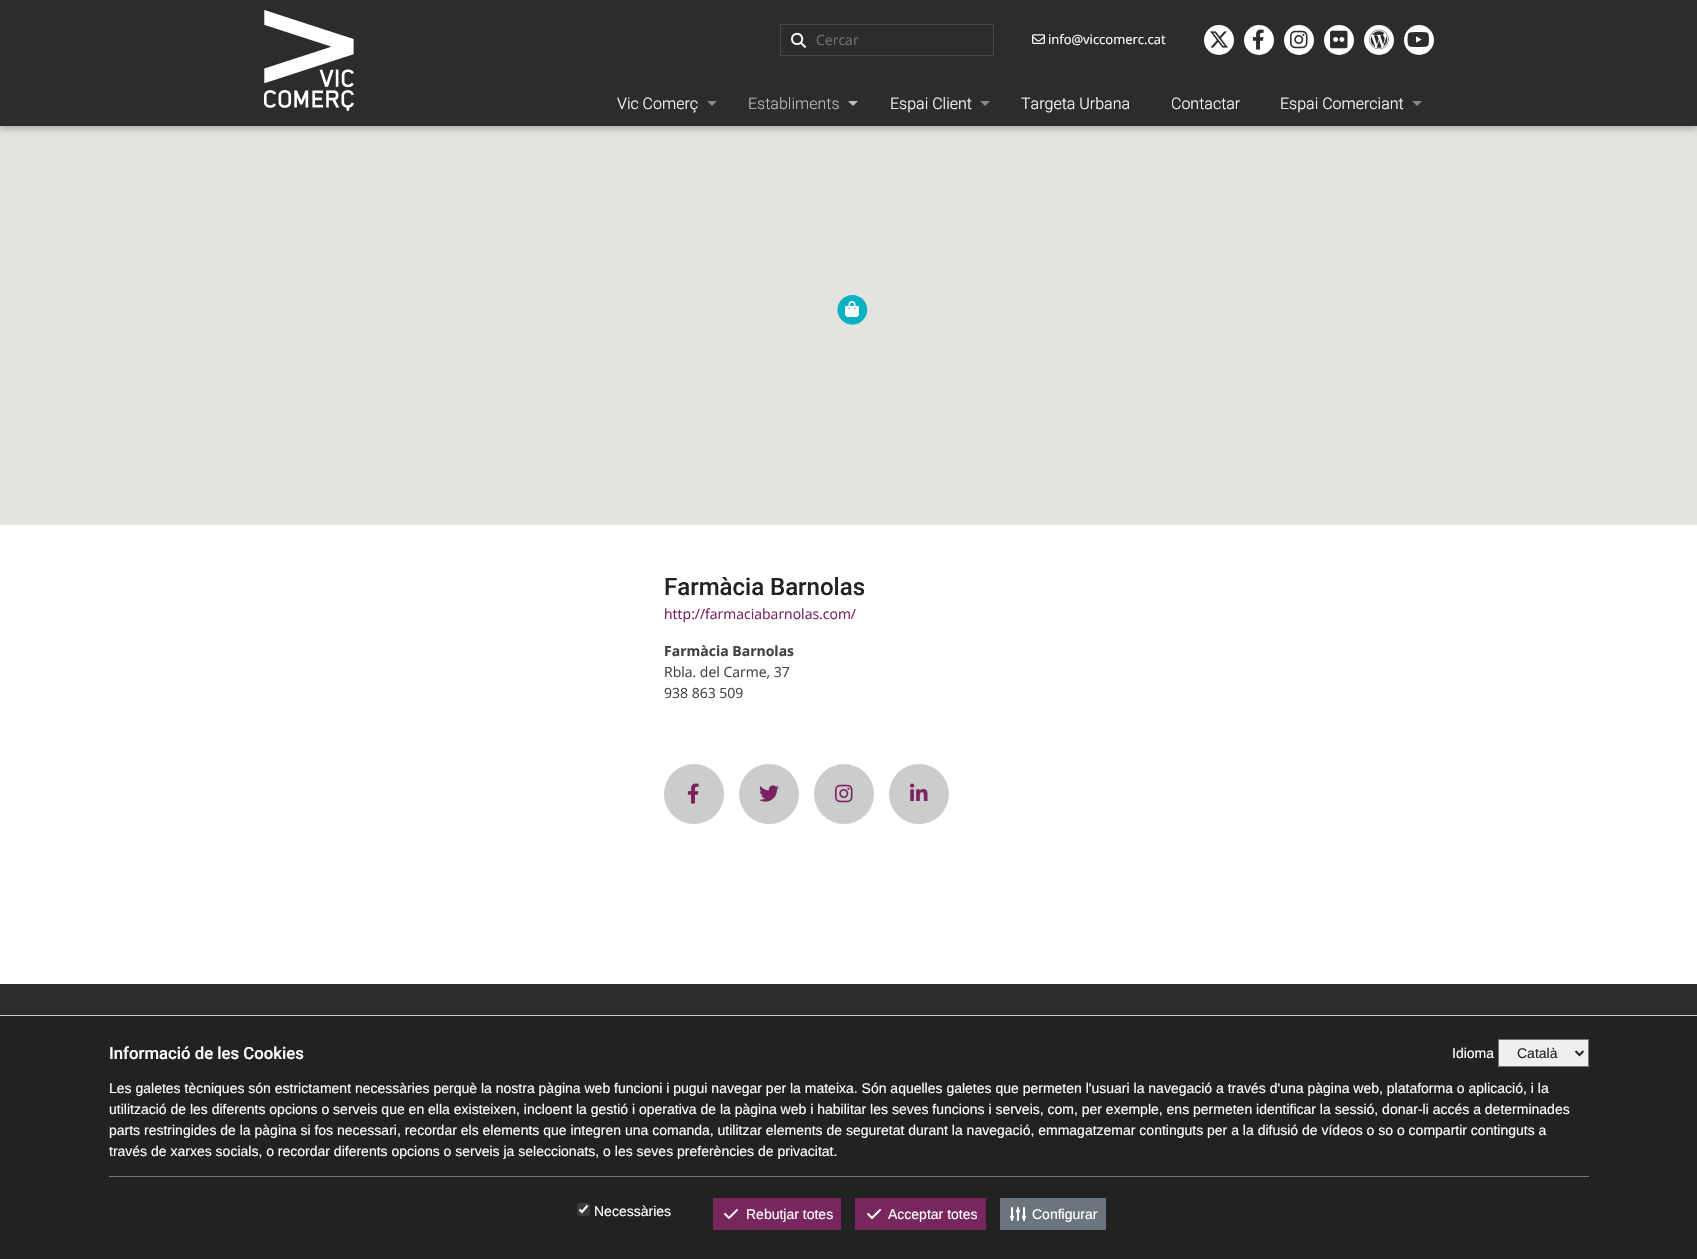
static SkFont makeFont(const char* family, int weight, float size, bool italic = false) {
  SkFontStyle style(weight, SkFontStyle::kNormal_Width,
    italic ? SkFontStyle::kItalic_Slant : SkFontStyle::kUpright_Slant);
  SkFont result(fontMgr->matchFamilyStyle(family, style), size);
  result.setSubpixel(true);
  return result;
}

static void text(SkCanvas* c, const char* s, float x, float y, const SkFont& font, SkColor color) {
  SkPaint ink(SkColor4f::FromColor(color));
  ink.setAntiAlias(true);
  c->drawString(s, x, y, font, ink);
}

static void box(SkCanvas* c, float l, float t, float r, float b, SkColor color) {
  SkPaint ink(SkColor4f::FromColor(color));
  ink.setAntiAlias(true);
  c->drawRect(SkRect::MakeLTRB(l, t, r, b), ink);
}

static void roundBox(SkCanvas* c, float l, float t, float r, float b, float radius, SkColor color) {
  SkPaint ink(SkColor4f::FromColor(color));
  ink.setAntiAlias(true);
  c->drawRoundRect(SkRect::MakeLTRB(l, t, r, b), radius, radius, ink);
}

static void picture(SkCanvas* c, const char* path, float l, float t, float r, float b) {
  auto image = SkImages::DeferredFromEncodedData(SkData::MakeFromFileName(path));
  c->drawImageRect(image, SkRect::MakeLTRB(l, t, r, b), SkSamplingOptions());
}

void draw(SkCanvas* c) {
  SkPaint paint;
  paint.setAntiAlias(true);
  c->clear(0xffffffff);
  box(c, 0, 126, 1697, 525, 0xffe5e3df);
  paint.setColor(0x26000000);
  paint.setMaskFilter(SkMaskFilter::MakeBlur(kNormal_SkBlurStyle, 3));
  c->drawRect(SkRect::MakeLTRB(0, 3, 1697, 129), paint);
  paint.setMaskFilter(nullptr);
  paint.setColor(0x1a000000);
  paint.setMaskFilter(SkMaskFilter::MakeBlur(kNormal_SkBlurStyle, 3));
  c->drawRect(SkRect::MakeLTRB(0, 3, 1697, 129), paint);
  paint.setMaskFilter(nullptr);
  box(c, 0, 0, 1697, 126, 0xff2c2c2c);
  picture(c, "img_01.png", 264, 10, 354, 111);
  paint.setStyle(SkPaint::kStroke_Style);
  paint.setStrokeWidth(1);
  paint.setColor(0xff4a4a4a);
  c->drawRect(SkRect::MakeLTRB(780.5f, 24.5f, 993.5f, 55.5f), paint);
  picture(c, "img_02.png", 791, 32, 806, 48);
  SkFont face1 = makeFont("Open Sans", 400, 14);
  text(c, "Cercar", 816, 45, face1, 0xff6c757d);
  picture(c, "img_03.png", 1032, 34, 1045, 44);
  SkFont face2 = makeFont("Open Sans", 400, 13);
  text(c, "info@viccomerc.cat", 1048, 44, face2, 0xffffffff);
  paint.setStyle(SkPaint::kFill_Style);
  paint.setColor(0xffffffff);
  c->drawCircle(1219, 40, 15, paint);
  picture(c, "img_04.png", 1210, 31, 1228, 48);
  c->drawCircle(1259, 40, 15, paint);
  picture(c, "img_05.png", 1252, 29, 1264, 50);
  c->drawCircle(1299, 40, 15, paint);
  picture(c, "img_06.png", 1290, 30, 1308, 49);
  c->drawCircle(1339, 40, 15, paint);
  picture(c, "img_07.png", 1330, 30, 1348, 49);
  c->drawCircle(1379, 40, 15, paint);
  picture(c, "img_08.png", 1369, 29, 1389, 50);
  c->drawCircle(1419, 40, 15, paint);
  picture(c, "img_09.png", 1407, 32, 1429, 47);
  SkFont face3 = makeFont("Roboto", 300, 16);
  text(c, "Vic Comerç", 617, 109, face3, 0xffffffff);
  paint.setColor(0xff888888);
  c->drawPath(SkPathBuilder().moveTo(707, 101).lineTo(717, 101).lineTo(712, 106).close().detach(), paint);
  text(c, "Establiments", 748, 109, face3, 0xffbdbdbd);
  paint.setColor(0xffbdbdbd);
  c->drawPath(SkPathBuilder().moveTo(848, 101).lineTo(858, 101).lineTo(853, 106).close().detach(), paint);
  text(c, "Espai Client", 890, 109, face3, 0xffffffff);
  paint.setColor(0xff888888);
  c->drawPath(SkPathBuilder().moveTo(980, 101).lineTo(990, 101).lineTo(985, 106).close().detach(), paint);
  text(c, "Targeta Urbana", 1021, 109, face3, 0xffffffff);
  text(c, "Contactar", 1171, 109, face3, 0xffffffff);
  text(c, "Espai Comerciant", 1280, 109, face3, 0xffffffff);
  c->drawPath(SkPathBuilder().moveTo(1412, 101).lineTo(1422, 101).lineTo(1417, 106).close().detach(), paint);
  picture(c, "img_10.png", 837, 295, 868, 325);
  picture(c, "img_11.png", 845, 301, 859, 317);
  SkFont face4 = makeFont("Roboto", 500, 24);
  text(c, "Farmàcia Barnolas", 664, 595, face4, 0xff222222);
  text(c, "http://farmaciabarnolas.com/", 664, 619, face1, 0xff7a225f);
  SkFont face5 = makeFont("Open Sans", 700, 14);
  text(c, "Farmàcia Barnolas", 664, 656, face5, 0xff424242);
  text(c, "Rbla. del Carme, 37", 664, 677, face1, 0xff424242);
  text(c, "938 863 509", 664, 698, face1, 0xff424242);
  paint.setColor(0xffcccccc);
  c->drawCircle(694, 794, 30, paint);
  picture(c, "img_12.png", 687, 783, 699, 804);
  c->drawCircle(769, 794, 30, paint);
  picture(c, "img_13.png", 759, 785, 779, 802);
  c->drawCircle(844, 794, 30, paint);
  picture(c, "img_14.png", 835, 784, 853, 803);
  c->drawCircle(919, 794, 30, paint);
  picture(c, "img_15.png", 910, 783, 928, 801);
  box(c, 0, 984, 1697, 1015, 0xff2c2c2c);
  paint.setColor(0x29000000);
  paint.setMaskFilter(SkMaskFilter::MakeBlur(kNormal_SkBlurStyle, 5));
  c->drawRect(SkRect::MakeLTRB(5, 1015, 1692, 1249), paint);
  paint.setMaskFilter(nullptr);
  box(c, 0, 1016, 1697, 1259, 0xff222222);
  box(c, 0, 1015, 1697, 1016, 0xffcccccc);
  SkFont face6 = makeFont("Roboto", 500, 16.75f);
  text(c, "Informació de les Cookies", 109, 1059, face6, 0xffffffff);
  SkFont face7 = makeFont("Liberation Sans", 400, 14);
  text(c, "Idioma", 1452, 1058, face7, 0xffffffff);
  paint.setColor(0xffefefef);
  c->drawRect(SkRect::MakeLTRB(1498.5f, 1039.5f, 1588.5f, 1066.5f), paint);
  paint.setStyle(SkPaint::kStroke_Style);
  paint.setColor(0xff777777);
  c->drawRect(SkRect::MakeLTRB(1498.5f, 1039.5f, 1588.5f, 1066.5f), paint);
  paint.setStrokeWidth(2);
  paint.setColor(0xff222222);
  c->drawPath(SkPathBuilder().moveTo(1575.5f, 1051).lineTo(1579.5f, 1055).lineTo(1583.5f, 1051).detach(), paint);
  text(c, "Català", 1517, 1058, face7, 0xff222222);
  text(c, "Les galetes tècniques són estrictament necessàries perquè la nostra pàgina web funcioni i pugui navegar per la mateixa. Són aquelles galetes que permeten l'usuari la navegació a través d'una pàgina web, plataforma o aplicació, i la", 109, 1093, face7, 0xffffffff);
  text(c, "utilització de les diferents opcions o serveis que en ella existeixen, incloent la gestió i operativa de la pàgina web i habilitar les seves funcions i serveis, com, per exemple, ens permeten identificar la sessió, donar-li accés a determinades", 109, 1114, face7, 0xffffffff);
  text(c, "parts restringides de la pàgina si fos necessari, recordar els elements que integren una comanda, utilitzar elements de seguretat durant la navegació, emmagatzemar continguts per a la difusió de vídeos o so o compartir continguts a", 109, 1135, face7, 0xffffffff);
  text(c, "través de xarxes socials, o recordar diferents opcions o serveis ja seleccionats, o les seves preferències de privacitat.", 109, 1156, face7, 0xffffffff);
  box(c, 109, 1176, 1589, 1177, 0xff777777);
  roundBox(c, 577, 1203, 590, 1216, 2, 0xff3b3b3b);
  paint.setStrokeWidth(2.1f);
  paint.setColor(0xffffffff);
  c->drawPath(SkPathBuilder().moveTo(579.5f, 1209.5f).lineTo(582, 1212).lineTo(587.5f, 1205.5f).detach(), paint);
  text(c, "Necessàries", 594, 1216, face7, 0xffffffff);
  box(c, 713, 1198, 841, 1230, 0xff78265e);
  picture(c, "img_16.png", 724, 1209, 738, 1219);
  text(c, "Rebutjar totes", 746, 1219, face7, 0xffffffff);
  box(c, 855, 1198, 986, 1230, 0xff78265e);
  picture(c, "img_16.png", 867, 1209, 881, 1219);
  text(c, "Acceptar totes", 888, 1219, face7, 0xffffffff);
  box(c, 1000, 1198, 1106, 1230, 0xff6c757d);
  picture(c, "img_17.png", 1010, 1207, 1026, 1221);
  text(c, "Configurar", 1032, 1219, face7, 0xffffffff);
}
